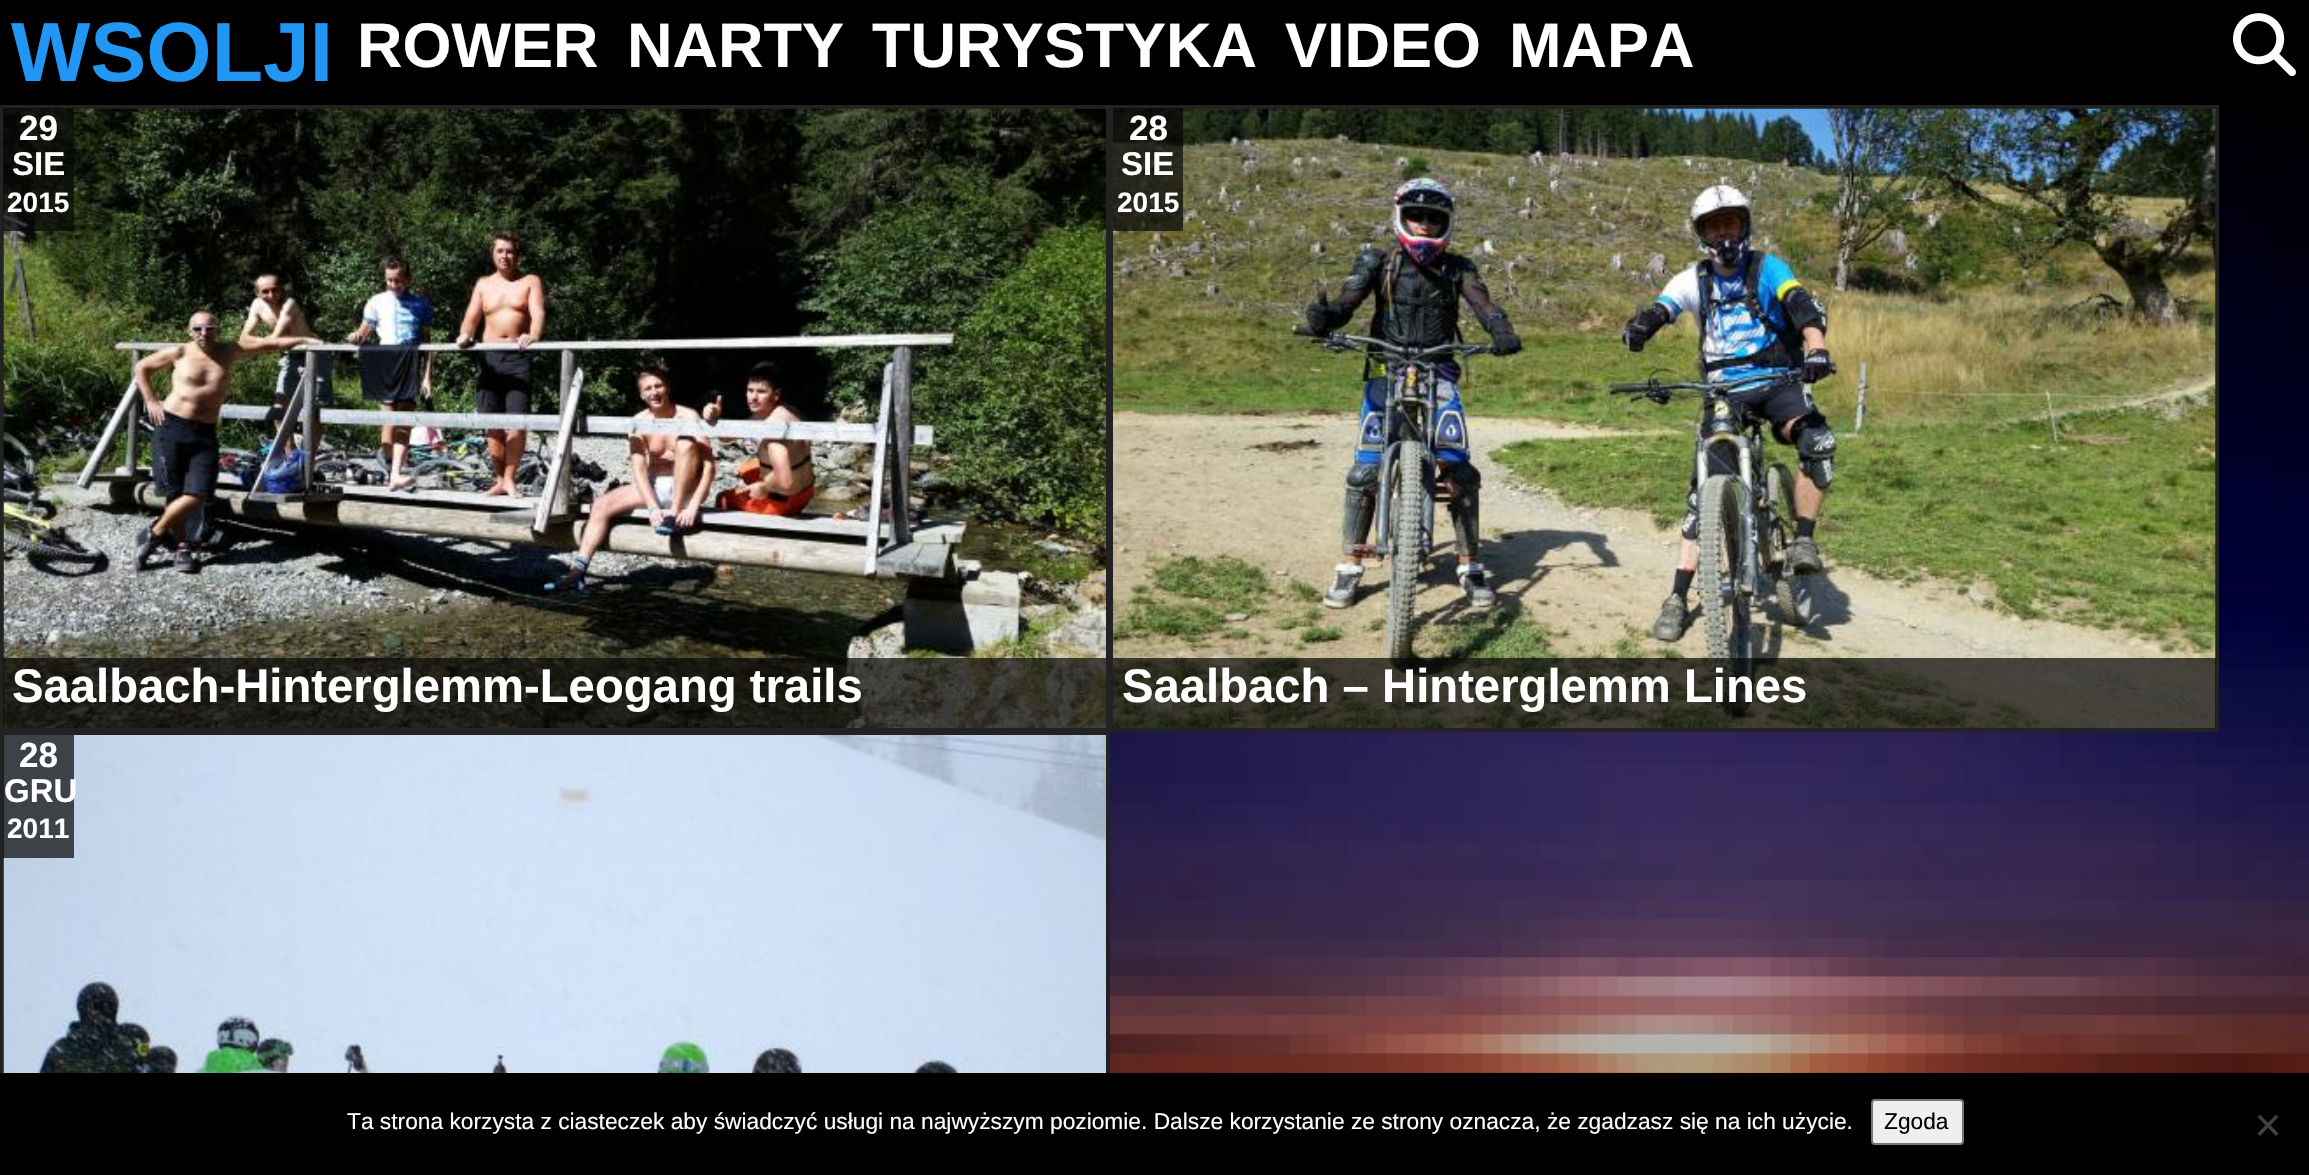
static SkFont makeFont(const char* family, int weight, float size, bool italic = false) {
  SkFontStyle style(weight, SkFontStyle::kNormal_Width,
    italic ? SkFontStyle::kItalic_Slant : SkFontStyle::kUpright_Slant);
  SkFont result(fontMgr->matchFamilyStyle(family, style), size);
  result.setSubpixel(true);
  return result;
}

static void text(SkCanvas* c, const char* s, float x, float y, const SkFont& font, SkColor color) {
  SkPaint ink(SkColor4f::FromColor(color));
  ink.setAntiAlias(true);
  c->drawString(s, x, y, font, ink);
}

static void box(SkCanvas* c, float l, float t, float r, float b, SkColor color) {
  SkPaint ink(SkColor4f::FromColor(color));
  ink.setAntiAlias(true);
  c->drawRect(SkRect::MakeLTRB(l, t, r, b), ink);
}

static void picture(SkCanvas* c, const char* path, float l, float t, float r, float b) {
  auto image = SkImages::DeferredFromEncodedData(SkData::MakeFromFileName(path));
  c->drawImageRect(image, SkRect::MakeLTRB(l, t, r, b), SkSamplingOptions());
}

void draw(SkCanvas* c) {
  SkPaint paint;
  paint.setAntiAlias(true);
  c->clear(0xffffffff);
  picture(c, "img_01.png", 1110, 105, 2309, 1073);
  box(c, 0, 0, 2309, 105, 0xff000000);
  SkFont face1 = makeFont("Liberation Sans", 700, 84);
  text(c, "WSOLJI", 11, 81, face1, 0xff2196f3);
  SkFont face2 = makeFont("Liberation Sans", 700, 63);
  text(c, "ROWER", 357, 67, face2, 0xffffffff);
  text(c, "NARTY", 627, 67, face2, 0xffffffff);
  text(c, "TURYSTYKA", 872, 67, face2, 0xffffffff);
  text(c, "VIDEO", 1285, 67, face2, 0xffffffff);
  text(c, "MAPA", 1509, 67, face2, 0xffffffff);
  picture(c, "img_02.png", 2233, 13, 2296, 77);
  paint.setStyle(SkPaint::kStroke_Style);
  paint.setStrokeWidth(4);
  paint.setColor(0xff222222);
  c->drawRect(SkRect::MakeLTRB(2, 107, 1108, 730), paint);
  picture(c, "img_03.png", 3, 108, 1106, 728);
  box(c, 3, 108, 74, 231, 0xb3060606);
  SkFont face3 = makeFont("Liberation Sans", 700, 35);
  text(c, "29", 19, 140, face3, 0xffffffff);
  SkFont face4 = makeFont("Liberation Sans", 700, 33);
  text(c, "SIE", 12, 175, face4, 0xffffffff);
  SkFont face5 = makeFont("Liberation Sans", 700, 28);
  text(c, "2015", 7, 212, face5, 0xffffffff);
  box(c, 3, 658, 1106, 728, 0xb3060606);
  SkFont face6 = makeFont("Liberation Sans", 700, 47.25f);
  text(c, "Saalbach-Hinterglemm-Leogang trails", 12, 702, face6, 0xffffffff);
  c->drawRect(SkRect::MakeLTRB(1112, 107, 2217, 730), paint);
  picture(c, "img_04.png", 1113, 108, 2216, 728);
  box(c, 1113, 108, 1183, 231, 0xb3060606);
  text(c, "28", 1129, 140, face3, 0xffffffff);
  text(c, "SIE", 1121, 175, face4, 0xffffffff);
  text(c, "2015", 1117, 212, face5, 0xffffffff);
  box(c, 1113, 658, 2216, 728, 0xb3060606);
  text(c, "Saalbach – Hinterglemm Lines", 1122, 702, face6, 0xffffffff);
  c->drawRect(SkRect::MakeLTRB(2, 734, 1108, 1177), paint);
  picture(c, "img_05.png", 3, 735, 1106, 1073);
  box(c, 3, 735, 74, 858, 0xb3060606);
  text(c, "28", 19, 767, face3, 0xffffffff);
  text(c, "GRU", 4, 802, face4, 0xffffffff);
  text(c, "2011", 7, 838, face5, 0xffffffff);
  box(c, 0, 1073, 2309, 1175, 0xff000000);
  SkFont face7 = makeFont("Liberation Sans", 400, 22.75f);
  text(c, "Ta strona korzysta z ciasteczek aby świadczyć usługi na najwyższym poziomie. Dalsze korzystanie ze strony oznacza, że zgadzasz się na ich użycie.", 347, 1129, face7, 0xffffffff);
  paint.setStyle(SkPaint::kFill_Style);
  paint.setColor(0xffefefef);
  c->drawRoundRect(SkRect::MakeLTRB(1872, 1100, 1963, 1144), 3, 3, paint);
  paint.setStyle(SkPaint::kStroke_Style);
  paint.setStrokeWidth(2);
  paint.setColor(0xff767676);
  c->drawRoundRect(SkRect::MakeLTRB(1872, 1100, 1963, 1144), 3, 3, paint);
  text(c, "Zgoda", 1884, 1129, face7, 0xff000000);
  paint.setStyle(SkPaint::kFill_Style);
  paint.setColor(0xff404040);
  c->drawPath(SkPathBuilder().moveTo(2276, 1114.5f).lineTo(2278.5f, 1117).lineTo(2260, 1136).lineTo(2257.5f, 1133.5f).close().detach(), paint);
  c->drawPath(SkPathBuilder().moveTo(2257.5f, 1117).lineTo(2260, 1114.5f).lineTo(2278.5f, 1133.5f).lineTo(2276, 1136).close().detach(), paint);
}
